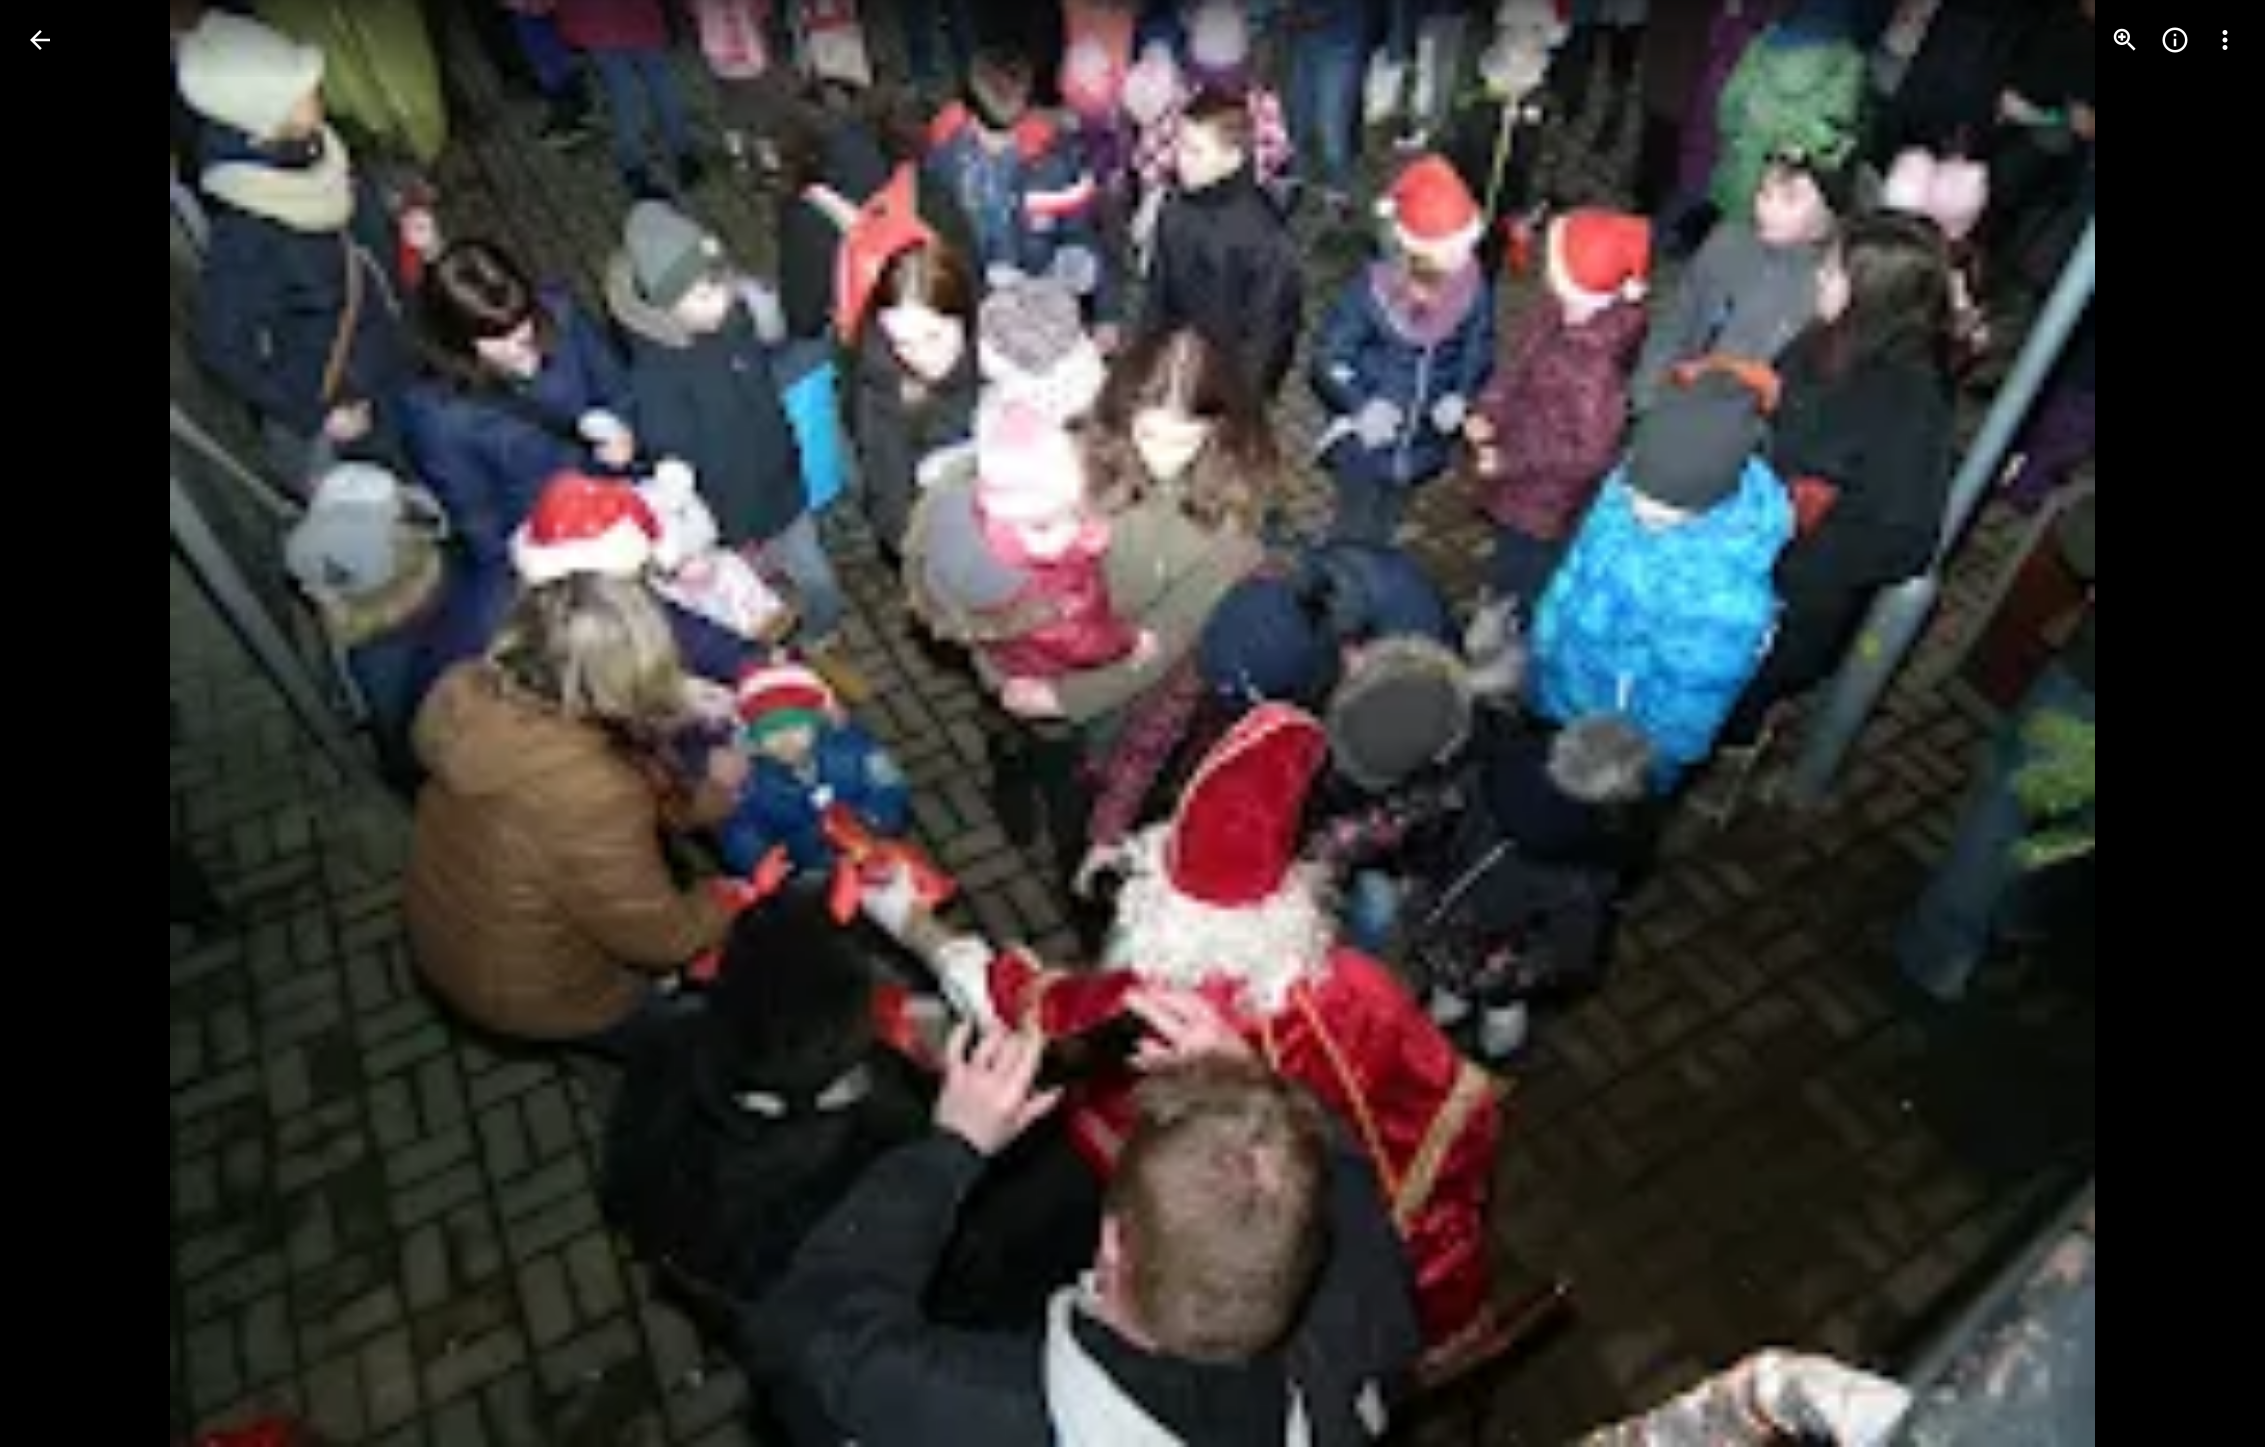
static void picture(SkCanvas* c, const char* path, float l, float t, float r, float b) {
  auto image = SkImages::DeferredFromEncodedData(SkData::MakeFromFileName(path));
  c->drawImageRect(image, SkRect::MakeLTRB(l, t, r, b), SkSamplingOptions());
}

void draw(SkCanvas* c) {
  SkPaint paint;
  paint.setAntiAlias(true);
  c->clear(0xff000000);
  picture(c, "img_05.png", 170, 0, 2095, 1447);
  {
    const SkColor colors[] = {0x99000000, 0x00000000};
    const float stops[] = {0, 1};
    const SkPoint ends[] = {{1133, 0}, {1133, 80}};
    paint.setShader(SkGradientShader::MakeLinear(ends, colors, stops, 2, SkTileMode::kClamp));
    paint.setAlpha(255);
  }
  c->drawRect(SkRect::MakeLTRB(170, 0, 2095, 77), paint);
  picture(c, "img_01.png", 30, 30, 50, 50);
  picture(c, "img_02.png", 2113, 28, 2136, 51);
  picture(c, "img_03.png", 2162, 27, 2188, 53);
  picture(c, "img_04.png", 2222, 30, 2228, 50);
}
